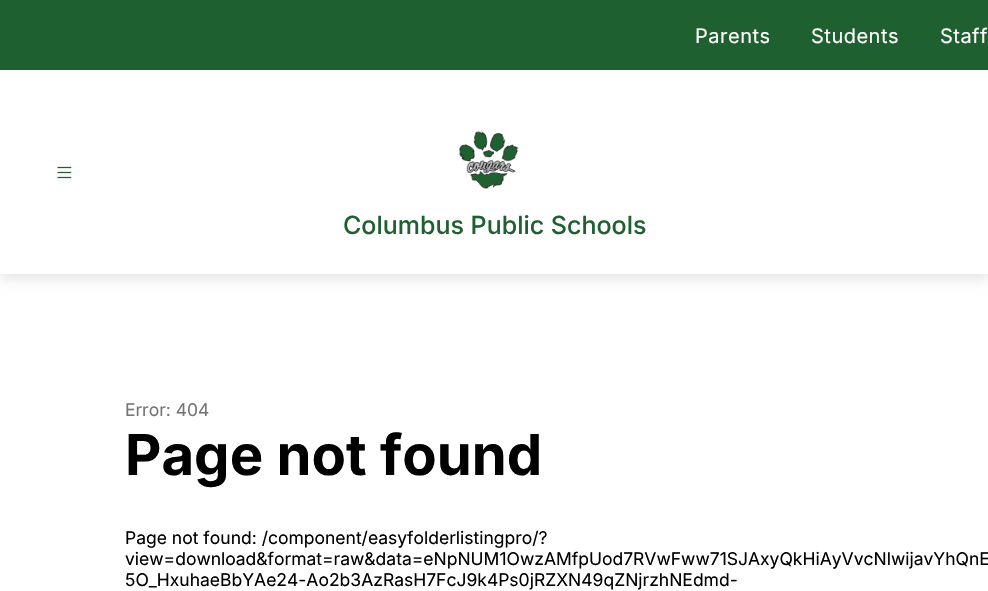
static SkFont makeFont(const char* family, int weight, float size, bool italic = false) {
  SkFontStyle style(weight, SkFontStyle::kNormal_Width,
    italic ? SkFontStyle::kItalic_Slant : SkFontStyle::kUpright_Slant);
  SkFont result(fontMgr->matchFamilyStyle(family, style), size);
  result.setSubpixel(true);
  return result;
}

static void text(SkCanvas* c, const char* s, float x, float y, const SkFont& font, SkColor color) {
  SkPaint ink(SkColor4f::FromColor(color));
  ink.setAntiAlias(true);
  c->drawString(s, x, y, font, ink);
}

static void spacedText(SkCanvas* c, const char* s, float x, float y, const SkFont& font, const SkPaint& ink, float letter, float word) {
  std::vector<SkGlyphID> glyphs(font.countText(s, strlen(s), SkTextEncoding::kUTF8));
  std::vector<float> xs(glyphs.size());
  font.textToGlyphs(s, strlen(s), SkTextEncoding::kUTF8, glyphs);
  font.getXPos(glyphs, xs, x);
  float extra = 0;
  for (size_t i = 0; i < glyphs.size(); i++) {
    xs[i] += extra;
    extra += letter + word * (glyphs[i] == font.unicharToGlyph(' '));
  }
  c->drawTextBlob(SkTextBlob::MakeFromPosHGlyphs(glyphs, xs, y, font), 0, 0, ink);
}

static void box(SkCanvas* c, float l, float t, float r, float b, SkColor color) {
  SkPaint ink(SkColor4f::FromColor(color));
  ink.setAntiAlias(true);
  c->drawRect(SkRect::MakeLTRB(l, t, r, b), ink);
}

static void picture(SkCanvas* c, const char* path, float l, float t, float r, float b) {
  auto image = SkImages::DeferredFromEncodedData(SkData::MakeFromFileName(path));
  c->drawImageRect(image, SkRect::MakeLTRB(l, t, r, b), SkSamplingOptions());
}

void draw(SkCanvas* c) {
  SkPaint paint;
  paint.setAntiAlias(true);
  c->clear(0xffffffff);
  paint.setColor(0x1a000000);
  paint.setMaskFilter(SkMaskFilter::MakeBlur(kNormal_SkBlurStyle, 6));
  c->drawRect(SkRect::MakeLTRB(0, 5, 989, 279), paint);
  paint.setMaskFilter(nullptr);
  box(c, 0, 70, 988, 274, 0xffffffff);
  box(c, 0, 0, 988, 70, 0xff1f6030);
  SkFont face1 = makeFont("Inter", 400, 20);
  paint.setColor(0xffffffff);
  spacedText(c, "Parents", 695, 43, face1, paint, 0.5f, 0);
  spacedText(c, "Students", 811, 43, face1, paint, 0.5f, 0);
  spacedText(c, "Staff", 940, 43, face1, paint, 0.5f, 0);
  picture(c, "img_01.png", 57, 166, 72, 179);
  picture(c, "img_02.png", 458, 131, 519, 189);
  SkFont face2 = makeFont("Inter", 500, 25);
  text(c, "Columbus Public Schools", 343, 234, face2, 0xff1f6030);
  SkFont face3 = makeFont("Inter", 400, 17.5f);
  text(c, "Error: 404", 125, 416, face3, 0xff747474);
  SkFont face4 = makeFont("Inter", 700, 56.25f);
  text(c, "Page not found", 125, 475, face4, 0xff000000);
  text(c, "Page not found: /component/easyfolderlistingpro/?", 125, 544, face3, 0xff000000);
  text(c, "view=download&format=raw&data=eNpNUM1OwzAMfpUod7RVwFww71SJAxyQkHiAyVvcNlwijavYhQnE", 125, 565, face3, 0xff000000);
  text(c, "5O_HxuhaeBbYAe24-Ao2b3AzRasH7FcJ9k4Ps0jRZXN49qZNjrzhNEdmd-", 125, 586, face3, 0xff000000);
}
